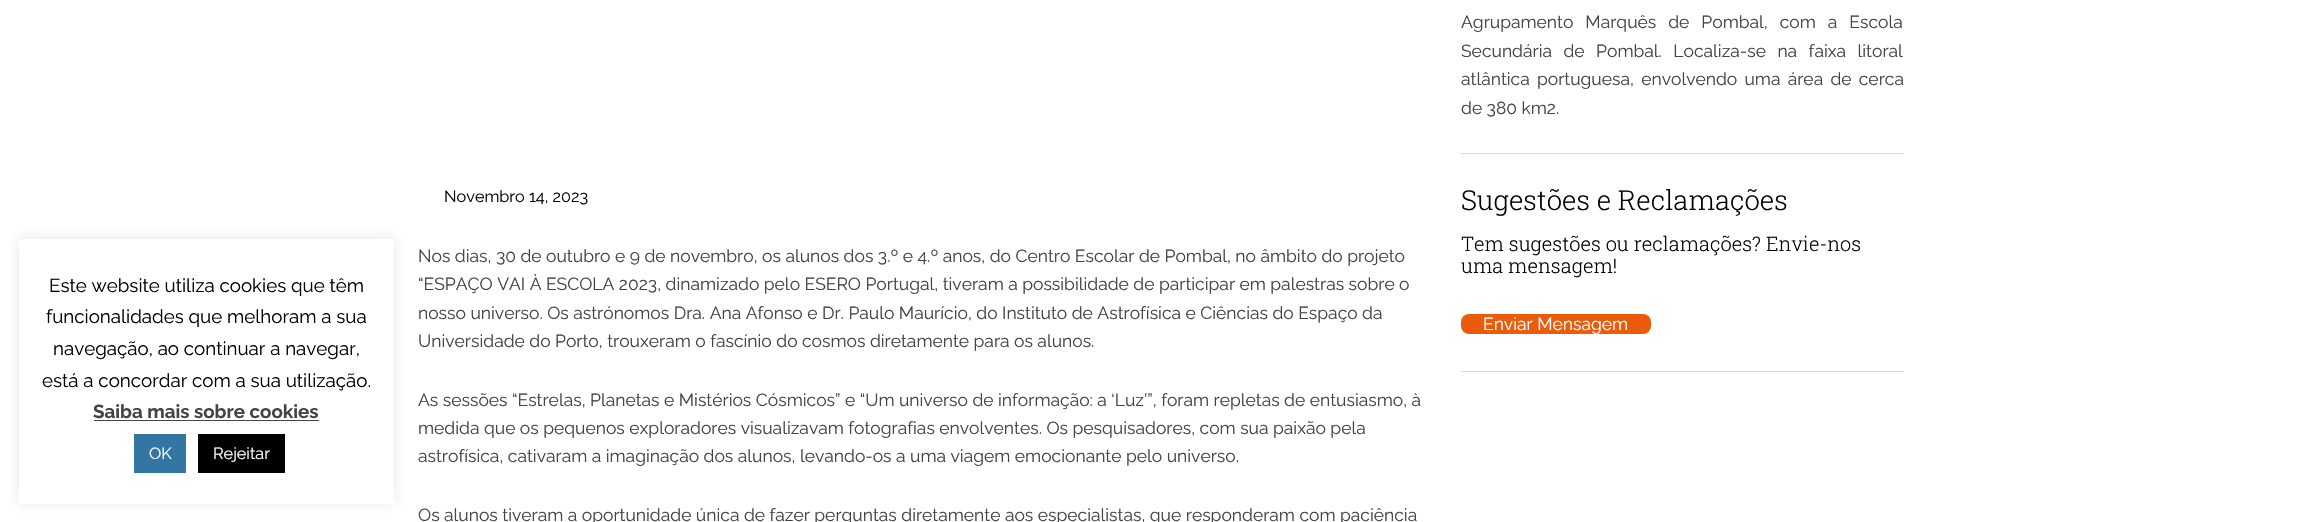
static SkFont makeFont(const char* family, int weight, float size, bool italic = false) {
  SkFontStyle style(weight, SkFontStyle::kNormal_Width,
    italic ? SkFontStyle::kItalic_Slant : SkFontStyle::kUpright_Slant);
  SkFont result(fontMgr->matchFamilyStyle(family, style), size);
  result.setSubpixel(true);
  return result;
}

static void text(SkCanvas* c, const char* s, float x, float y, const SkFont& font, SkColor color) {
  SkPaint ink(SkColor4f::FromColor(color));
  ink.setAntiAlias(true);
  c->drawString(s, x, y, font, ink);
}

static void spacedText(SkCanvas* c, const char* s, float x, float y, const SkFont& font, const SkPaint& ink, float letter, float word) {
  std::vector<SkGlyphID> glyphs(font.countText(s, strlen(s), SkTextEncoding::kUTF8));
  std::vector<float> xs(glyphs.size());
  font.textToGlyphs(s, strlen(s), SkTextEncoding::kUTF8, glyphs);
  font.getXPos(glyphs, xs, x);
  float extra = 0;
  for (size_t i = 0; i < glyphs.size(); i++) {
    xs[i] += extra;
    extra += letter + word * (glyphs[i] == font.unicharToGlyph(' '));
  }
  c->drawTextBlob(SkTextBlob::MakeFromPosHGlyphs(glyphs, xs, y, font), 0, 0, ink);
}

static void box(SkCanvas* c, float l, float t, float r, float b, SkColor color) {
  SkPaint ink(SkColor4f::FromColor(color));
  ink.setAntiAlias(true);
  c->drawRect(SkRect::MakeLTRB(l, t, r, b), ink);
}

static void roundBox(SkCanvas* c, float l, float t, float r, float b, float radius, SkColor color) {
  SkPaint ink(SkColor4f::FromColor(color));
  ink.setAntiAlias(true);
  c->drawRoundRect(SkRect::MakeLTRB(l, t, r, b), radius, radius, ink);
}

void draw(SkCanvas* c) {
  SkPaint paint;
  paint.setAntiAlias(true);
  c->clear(0xffffffff);
  paint.setColor(0x4dacabab);
  paint.setMaskFilter(SkMaskFilter::MakeBlur(kNormal_SkBlurStyle, 6));
  c->drawRect(SkRect::MakeLTRB(19, 238, 394, 503), paint);
  paint.setMaskFilter(nullptr);
  box(c, 19, 239, 394, 504, 0xffffffff);
  SkFont face1 = makeFont("Raleway", 400, 18.75f);
  text(c, "Este website utiliza cookies que têm", 49, 292, face1, 0xff000000);
  text(c, "funcionalidades que melhoram a sua", 46, 323, face1, 0xff000000);
  text(c, "navegação, ao continuar a navegar,", 53, 355, face1, 0xff000000);
  text(c, "está a concordar com a sua utilização.", 42, 387, face1, 0xff000000);
  SkFont face2 = makeFont("Raleway", 700, 18.75f);
  text(c, "Saiba mais sobre cookies", 93, 418, face2, 0xff414345);
  box(c, 94, 420, 319, 421, 0xff444444);
  box(c, 134, 434, 186, 473, 0xff3375a3);
  SkFont face3 = makeFont("Raleway", 400, 16.25f);
  text(c, "OK", 149, 459, face3, 0xffffffff);
  box(c, 198, 434, 285, 473, 0xff000000);
  text(c, "Rejeitar", 213, 459, face3, 0xffffffff);
  text(c, "Novembro 14, 2023", 444, 202, face3, 0xff000000);
  SkFont face4 = makeFont("Raleway", 400, 17.5f);
  text(c, "Nos dias, 30 de outubro e 9 de novembro, os alunos dos 3.º e 4.º anos, do Centro Escolar de Pombal, no âmbito do projeto", 418, 262, face4, 0xff414345);
  text(c, "“ESPAÇO VAI À ESCOLA 2023, dinamizado pelo ESERO Portugal, tiveram a possibilidade de participar em palestras sobre o", 418, 290, face4, 0xff414345);
  text(c, "nosso universo. Os astrónomos Dra. Ana Afonso e Dr. Paulo Maurício, do Instituto de Astrofísica e Ciências do Espaço da", 418, 319, face4, 0xff414345);
  text(c, "Universidade do Porto, trouxeram o fascínio do cosmos diretamente para os alunos.", 418, 347, face4, 0xff414345);
  text(c, "As sessões “Estrelas, Planetas e Mistérios Cósmicos” e “Um universo de informação: a ‘Luz’”, foram repletas de entusiasmo, à", 418, 406, face4, 0xff414345);
  text(c, "medida que os pequenos exploradores visualizavam fotografias envolventes. Os pesquisadores, com sua paixão pela", 418, 434, face4, 0xff414345);
  text(c, "astrofísica, cativaram a imaginação dos alunos, levando-os a uma viagem emocionante pelo universo.", 418, 462, face4, 0xff414345);
  text(c, "Os alunos tiveram a oportunidade única de fazer perguntas diretamente aos especialistas, que responderam com paciência", 418, 521, face4, 0xff414345);
  paint.setColor(0xff414345);
  spacedText(c, "Agrupamento Marquês de Pombal, com a Escola", 1461, 28, face4, paint, 0, 7.5f);
  spacedText(c, "Secundária de Pombal. Localiza-se na faixa litoral", 1461, 57, face4, paint, 0, 7);
  spacedText(c, "atlântica portuguesa, envolvendo uma área de cerca", 1461, 85, face4, paint, 0, 2.75f);
  text(c, "de 380 km2.", 1461, 114, face4, 0xff414345);
  box(c, 1461, 153, 1904, 154, 0xffd9d9d9);
  SkFont face5 = makeFont("Roboto Slab", 300, 27.5f);
  text(c, "Sugestões e Reclamações", 1461, 210, face5, 0xff000000);
  SkFont face6 = makeFont("Roboto Slab", 300, 20);
  text(c, "Tem sugestões ou reclamações? Envie-nos", 1461, 251, face6, 0xff000000);
  text(c, "uma mensagem!", 1461, 273, face6, 0xff000000);
  roundBox(c, 1461, 314, 1651, 334, 8, 0xffea5b0c);
  text(c, "Enviar Mensagem", 1483, 330, face4, 0xffffffff);
  box(c, 1461, 371, 1904, 372, 0xffd9d9d9);
}
